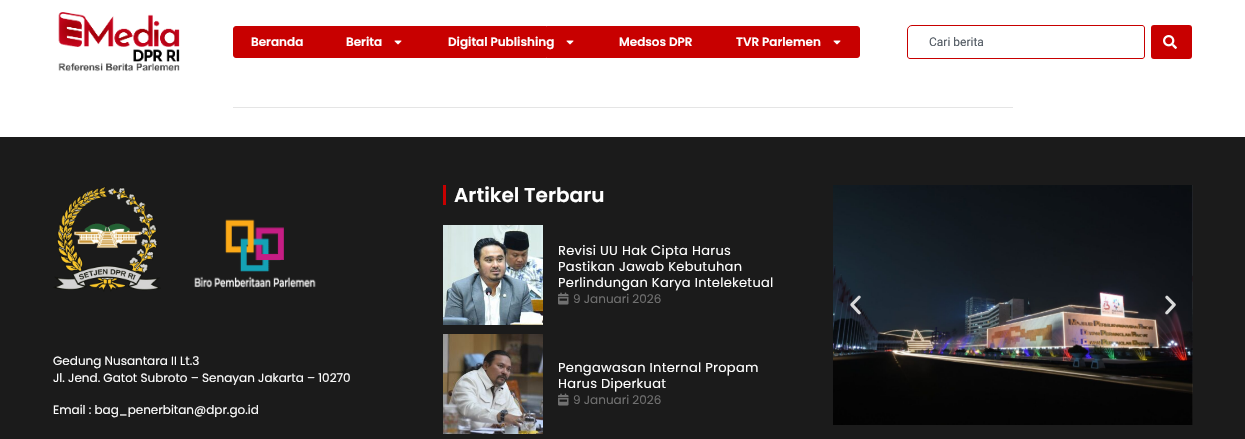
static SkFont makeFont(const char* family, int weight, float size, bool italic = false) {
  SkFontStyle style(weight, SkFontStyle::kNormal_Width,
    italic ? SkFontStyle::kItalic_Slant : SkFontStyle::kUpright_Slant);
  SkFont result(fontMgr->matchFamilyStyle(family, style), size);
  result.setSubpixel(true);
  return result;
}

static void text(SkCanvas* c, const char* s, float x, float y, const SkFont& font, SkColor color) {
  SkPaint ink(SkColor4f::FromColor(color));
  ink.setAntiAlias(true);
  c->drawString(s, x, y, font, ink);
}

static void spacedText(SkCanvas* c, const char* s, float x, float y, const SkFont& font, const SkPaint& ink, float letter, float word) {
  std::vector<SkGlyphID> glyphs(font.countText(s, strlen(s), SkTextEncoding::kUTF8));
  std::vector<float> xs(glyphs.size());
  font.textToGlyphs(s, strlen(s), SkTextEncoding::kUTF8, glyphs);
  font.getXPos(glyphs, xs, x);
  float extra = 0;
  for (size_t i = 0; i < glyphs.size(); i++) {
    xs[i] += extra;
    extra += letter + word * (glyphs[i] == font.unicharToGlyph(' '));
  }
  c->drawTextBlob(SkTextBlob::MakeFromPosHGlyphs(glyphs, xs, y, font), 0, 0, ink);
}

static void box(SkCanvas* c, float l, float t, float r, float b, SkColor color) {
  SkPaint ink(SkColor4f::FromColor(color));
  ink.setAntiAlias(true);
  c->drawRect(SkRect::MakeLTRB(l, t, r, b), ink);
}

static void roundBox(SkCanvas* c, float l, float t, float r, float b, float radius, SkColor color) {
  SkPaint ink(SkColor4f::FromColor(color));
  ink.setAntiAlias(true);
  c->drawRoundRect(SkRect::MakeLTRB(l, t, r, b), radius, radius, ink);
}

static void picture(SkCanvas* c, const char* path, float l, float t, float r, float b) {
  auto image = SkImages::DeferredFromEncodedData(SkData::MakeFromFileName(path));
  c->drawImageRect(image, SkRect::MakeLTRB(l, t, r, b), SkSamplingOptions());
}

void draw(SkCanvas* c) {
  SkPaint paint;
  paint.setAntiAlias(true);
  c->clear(0xffffffff);
  c->save();
  c->clipRect(SkRect::MakeLTRB(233, 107, 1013, 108));
  paint.setColor(0x1a000000);
  paint.setMaskFilter(SkMaskFilter::MakeBlur(kNormal_SkBlurStyle, 0.5f));
  c->drawRect(SkRect::MakeLTRB(233, -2, 1013, 108), paint);
  paint.setMaskFilter(nullptr);
  c->restore();
  box(c, 232, 0, 1014, 84, 0xffffffff);
  picture(c, "img_01.png", 58, 12, 180, 72);
  paint.setColor(0xffc80000);
  c->drawRoundRect(SkRect::MakeLTRB(233.5f, 26.5f, 859.5f, 57.5f), 2.5f, 2.5f, paint);
  paint.setStyle(SkPaint::kStroke_Style);
  paint.setStrokeWidth(1);
  c->drawRoundRect(SkRect::MakeLTRB(233.5f, 26.5f, 859.5f, 57.5f), 2.5f, 2.5f, paint);
  SkFont face1 = makeFont("Poppins", 600, 12);
  text(c, "Beranda", 251, 46, face1, 0xffffffff);
  text(c, "Berita", 346, 46, face1, 0xffffffff);
  picture(c, "img_02.png", 394, 40, 402, 45);
  text(c, "Digital Publishing", 448, 46, face1, 0xffffffff);
  picture(c, "img_02.png", 566, 40, 574, 45);
  text(c, "Medsos DPR", 619, 46, face1, 0xffffffff);
  text(c, "TVR Parlemen", 736, 46, face1, 0xffffffff);
  picture(c, "img_02.png", 833, 40, 841, 45);
  c->drawPath(SkPathBuilder().moveTo(912, 25.5f).lineTo(1142, 25.5f).cubicTo(1143.5f, 25.5f, 1144.5f, 26.5f, 1144.5f, 28).lineTo(1144.5f, 56).cubicTo(1144.5f, 57.5f, 1143.5f, 58.5f, 1142, 58.5f).lineTo(910, 58.5f).cubicTo(908.5f, 58.5f, 907.5f, 57.5f, 907.5f, 56).lineTo(907.5f, 30).cubicTo(907.5f, 27.5f, 909.5f, 25.5f, 912, 25.5f).close().detach(), paint);
  SkFont face2 = makeFont("Roboto", 400, 12);
  text(c, "Cari berita", 929, 46, face2, 0xff515962);
  roundBox(c, 1151, 25, 1192, 59, 3, 0xffc80000);
  picture(c, "img_03.png", 1163, 35, 1177, 49);
  box(c, 0, 137, 1245, 439, 0xff1b1b1b);
  picture(c, "img_04.png", 53, 186, 161, 292);
  picture(c, "img_05.png", 194, 219, 316, 288);
  SkFont face3 = makeFont("Poppins", 400, 12);
  text(c, "Gedung Nusantara II Lt.3", 53, 365, face3, 0xffffffff);
  text(c, "Jl. Jend. Gatot Subroto – Senayan Jakarta – 10270", 53, 382, face3, 0xffffffff);
  text(c, "Email : bag_penerbitan@dpr.go.id", 53, 414, face3, 0xffffffff);
  box(c, 443, 185, 446, 205, 0xffc80000);
  SkFont face4 = makeFont("Poppins", 600, 20);
  text(c, "Artikel Terbaru", 454, 202, face4, 0xffffffff);
  picture(c, "img_06.png", 443, 225, 543, 325);
  SkFont face5 = makeFont("Poppins", 400, 13);
  paint.setStyle(SkPaint::kFill_Style);
  paint.setColor(0xffffffff);
  spacedText(c, "Revisi UU Hak Cipta Harus", 558, 255, face5, paint, 0.3f, 0);
  spacedText(c, "Pastikan Jawab Kebutuhan", 558, 271, face5, paint, 0.3f, 0);
  spacedText(c, "Perlindungan Karya Inteleketual", 558, 287, face5, paint, 0.3f, 0);
  picture(c, "img_07.png", 558, 292, 569, 305);
  text(c, "9 Januari 2026", 573, 303, face3, 0xff707070);
  picture(c, "img_08.png", 443, 334, 543, 434);
  spacedText(c, "Pengawasan Internal Propam", 558, 372, face5, paint, 0.3f, 0);
  spacedText(c, "Harus Diperkuat", 558, 388, face5, paint, 0.3f, 0);
  picture(c, "img_07.png", 558, 393, 569, 406);
  text(c, "9 Januari 2026", 573, 404, face3, 0xff707070);
  picture(c, "img_09.png", 833, 185, 1193, 425);
  picture(c, "img_10.png", 1192, 185, 1193, 425);
  picture(c, "img_11.png", 850, 295, 861, 315);
  picture(c, "img_12.png", 1165, 295, 1176, 315);
}
